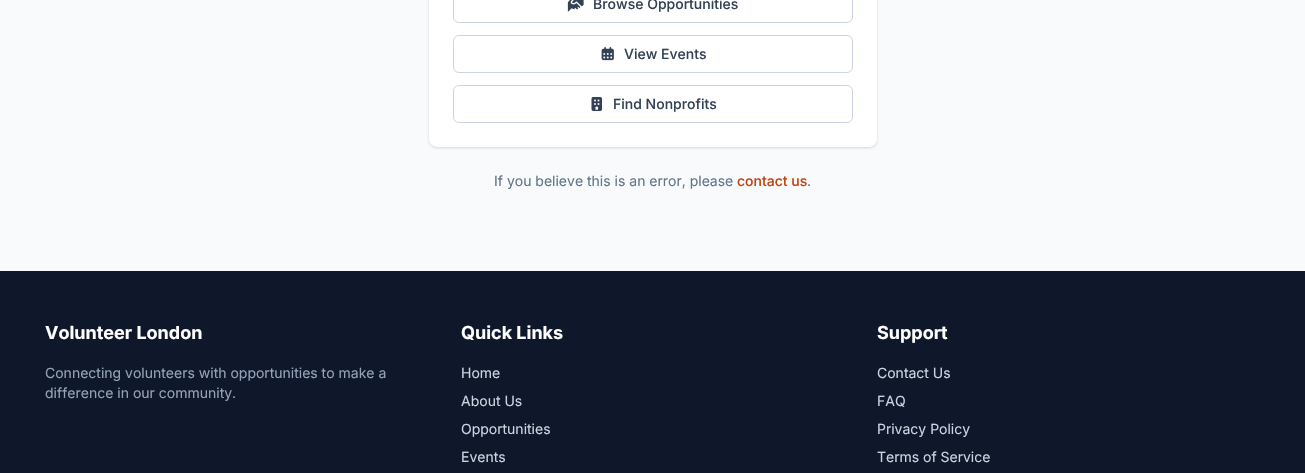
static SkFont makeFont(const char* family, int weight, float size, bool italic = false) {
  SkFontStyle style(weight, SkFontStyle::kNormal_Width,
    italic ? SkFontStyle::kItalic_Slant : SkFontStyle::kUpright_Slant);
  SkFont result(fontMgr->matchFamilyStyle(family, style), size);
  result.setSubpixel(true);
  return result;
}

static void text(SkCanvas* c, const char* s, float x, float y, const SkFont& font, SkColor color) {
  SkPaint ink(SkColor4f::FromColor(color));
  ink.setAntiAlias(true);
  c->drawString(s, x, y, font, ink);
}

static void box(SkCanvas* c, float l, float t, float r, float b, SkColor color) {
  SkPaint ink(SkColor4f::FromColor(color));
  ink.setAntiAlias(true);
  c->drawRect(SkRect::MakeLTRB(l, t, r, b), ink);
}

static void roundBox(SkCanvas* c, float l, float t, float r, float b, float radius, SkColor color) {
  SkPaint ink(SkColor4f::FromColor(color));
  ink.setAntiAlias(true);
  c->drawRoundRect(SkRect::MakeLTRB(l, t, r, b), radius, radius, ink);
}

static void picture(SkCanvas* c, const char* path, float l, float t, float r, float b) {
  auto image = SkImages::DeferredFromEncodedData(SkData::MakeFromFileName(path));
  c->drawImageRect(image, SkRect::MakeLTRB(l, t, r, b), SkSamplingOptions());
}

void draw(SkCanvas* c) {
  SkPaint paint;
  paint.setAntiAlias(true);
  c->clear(0xfff8fafc);
  paint.setColor(0x1a000000);
  paint.setMaskFilter(SkMaskFilter::MakeBlur(kNormal_SkBlurStyle, 1));
  c->drawRoundRect(SkRect::MakeLTRB(430, -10, 876, 147), 7, 7, paint);
  paint.setMaskFilter(nullptr);
  paint.setMaskFilter(SkMaskFilter::MakeBlur(kNormal_SkBlurStyle, 1.5f));
  c->drawRoundRect(SkRect::MakeLTRB(429, -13, 877, 148), 8, 8, paint);
  paint.setMaskFilter(nullptr);
  roundBox(c, 429, -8, 877, 147, 8, 0xffffffff);
  paint.setStyle(SkPaint::kStroke_Style);
  paint.setStrokeWidth(1);
  paint.setColor(0xffcbd5e1);
  c->drawRoundRect(SkRect::MakeLTRB(453.5f, -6.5f, 852.5f, 22.5f), 5.5f, 5.5f, paint);
  picture(c, "img_01.png", 567, 0, 584, 12);
  SkFont face1 = makeFont("Inter", 500, 14);
  text(c, "Browse Opportunities", 593, 9, face1, 0xff334155);
  c->drawRoundRect(SkRect::MakeLTRB(453.5f, 35.5f, 852.5f, 72.5f), 5.5f, 5.5f, paint);
  picture(c, "img_02.png", 601, 47, 614, 61);
  text(c, "View Events", 624, 59, face1, 0xff334155);
  c->drawRoundRect(SkRect::MakeLTRB(453.5f, 85.5f, 852.5f, 122.5f), 5.5f, 5.5f, paint);
  picture(c, "img_03.png", 591, 97, 602, 111);
  text(c, "Find Nonprofits", 613, 109, face1, 0xff334155);
  SkFont face2 = makeFont("Inter", 400, 14);
  text(c, "If you believe this is an error, please", 494, 186, face2, 0xff64748b);
  text(c, "contact us", 737, 186, face1, 0xffc2410c);
  text(c, ".", 807, 186, face2, 0xff64748b);
  box(c, 0, 271, 1305, 473, 0xff0f172a);
  SkFont face3 = makeFont("Inter", 700, 18);
  text(c, "Volunteer London", 45, 339, face3, 0xffffffff);
  text(c, "Connecting volunteers with opportunities to make a", 45, 378, face2, 0xff94a3b8);
  text(c, "difference in our community.", 45, 398, face2, 0xff94a3b8);
  text(c, "Quick Links", 461, 339, face3, 0xffffffff);
  text(c, "Home", 461, 378, face2, 0xffcbd5e1);
  text(c, "About Us", 461, 406, face2, 0xffcbd5e1);
  text(c, "Opportunities", 461, 434, face2, 0xffcbd5e1);
  text(c, "Events", 461, 462, face2, 0xffcbd5e1);
  text(c, "Support", 877, 339, face3, 0xffffffff);
  text(c, "Contact Us", 877, 378, face2, 0xffcbd5e1);
  text(c, "FAQ", 877, 406, face2, 0xffcbd5e1);
  text(c, "Privacy Policy", 877, 434, face2, 0xffcbd5e1);
  text(c, "Terms of Service", 877, 462, face2, 0xffcbd5e1);
}
